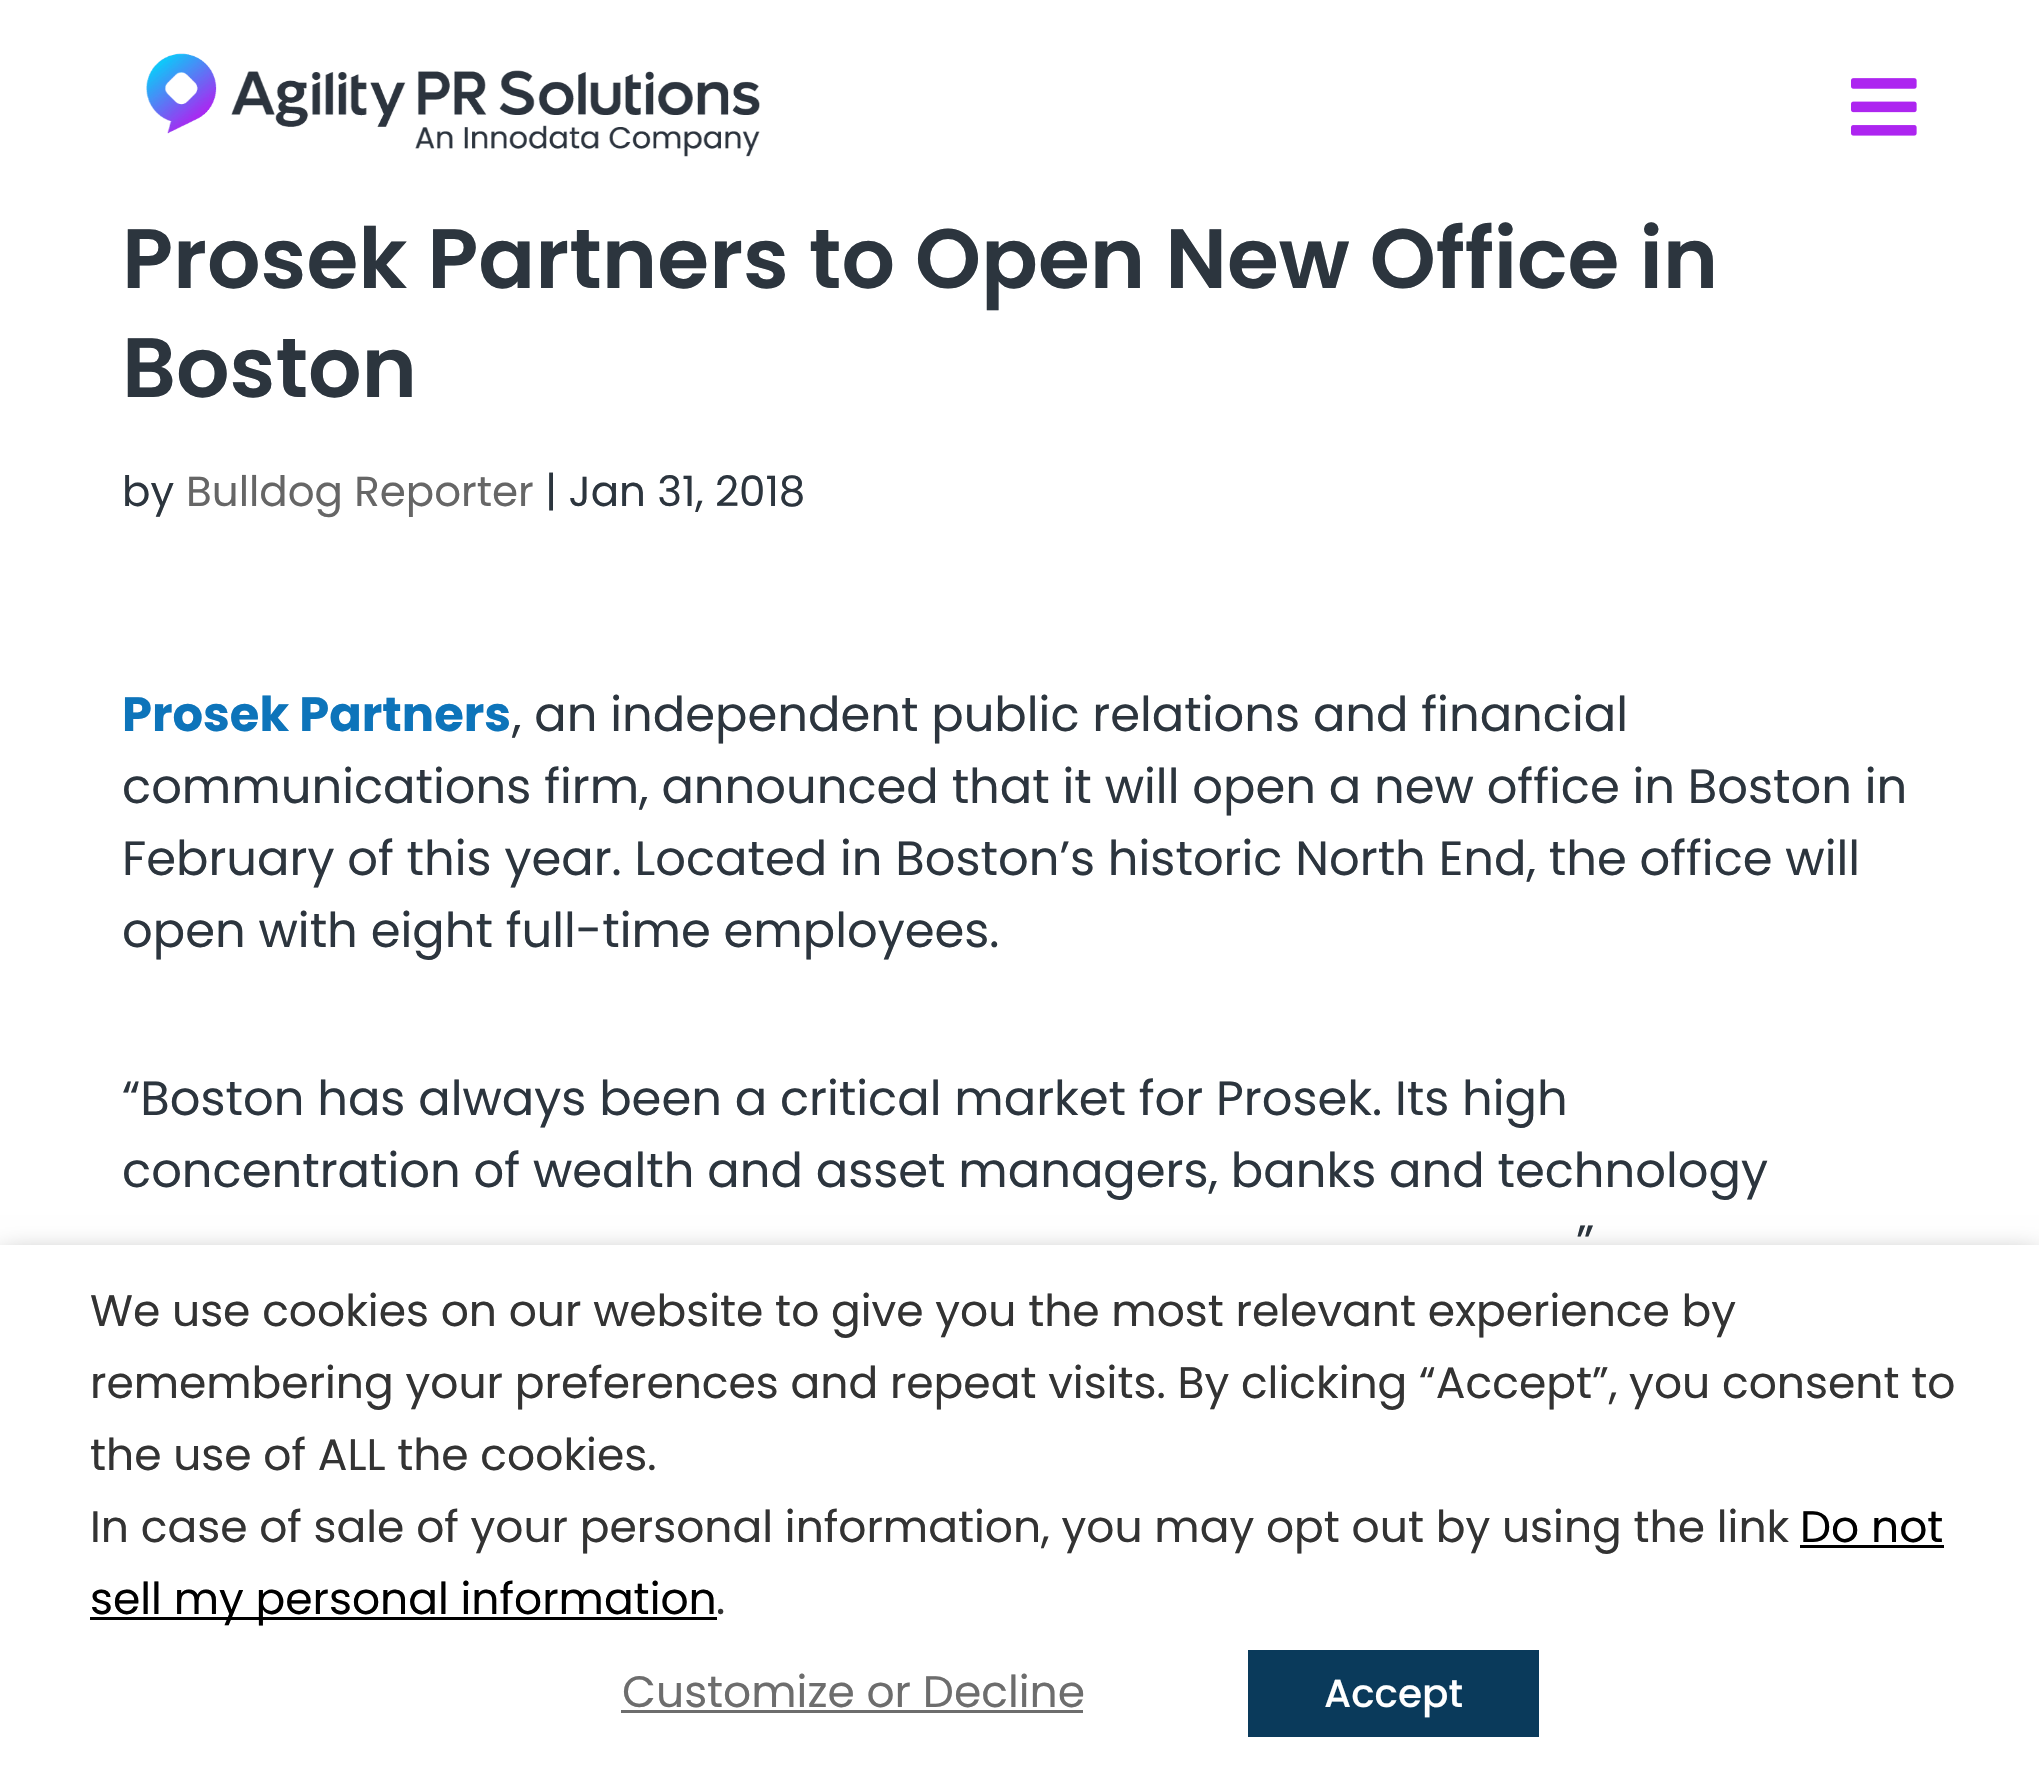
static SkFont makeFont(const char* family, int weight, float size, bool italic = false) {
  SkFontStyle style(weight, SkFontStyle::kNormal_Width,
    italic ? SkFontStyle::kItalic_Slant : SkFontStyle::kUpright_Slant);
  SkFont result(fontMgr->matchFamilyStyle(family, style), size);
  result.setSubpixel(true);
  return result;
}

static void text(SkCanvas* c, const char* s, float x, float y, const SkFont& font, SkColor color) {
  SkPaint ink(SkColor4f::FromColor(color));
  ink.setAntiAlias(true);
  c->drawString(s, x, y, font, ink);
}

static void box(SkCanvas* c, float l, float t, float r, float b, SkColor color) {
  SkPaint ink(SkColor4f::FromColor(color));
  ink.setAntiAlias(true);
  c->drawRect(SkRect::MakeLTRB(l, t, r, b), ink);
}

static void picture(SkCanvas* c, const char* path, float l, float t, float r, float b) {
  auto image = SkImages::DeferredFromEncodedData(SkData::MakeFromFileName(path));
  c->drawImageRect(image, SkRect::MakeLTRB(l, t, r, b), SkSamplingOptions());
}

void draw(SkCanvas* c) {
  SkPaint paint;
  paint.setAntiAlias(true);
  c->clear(0xffffffff);
  picture(c, "img_01.png", 146, 53, 760, 157);
  picture(c, "img_02.png", 1851, 78, 1917, 136);
  SkFont face1 = makeFont("Poppins", 600, 84);
  text(c, "Prosek Partners to Open New Office in", 122, 288, face1, 0xff2c353e);
  text(c, "Boston", 122, 397, face1, 0xff2c353e);
  SkFont face2 = makeFont("Poppins", 400, 42);
  text(c, "by", 122, 506, face2, 0xff2c353e);
  text(c, "Bulldog Reporter", 186, 506, face2, 0xff666666);
  text(c, "| Jan 31, 2018", 545, 506, face2, 0xff2c353e);
  SkFont face3 = makeFont("Poppins", 700, 48);
  text(c, "Prosek Partners", 122, 731, face3, 0xff0d74ba);
  SkFont face4 = makeFont("Poppins", 400, 48);
  text(c, ", an independent public relations and financial", 512, 731, face4, 0xff2c353e);
  text(c, "communications firm, announced that it will open a new office in Boston in", 122, 803, face4, 0xff2c353e);
  text(c, "February of this year. Located in Boston’s historic North End, the office will", 122, 875, face4, 0xff2c353e);
  text(c, "open with eight full-time employees.", 122, 947, face4, 0xff2c353e);
  text(c, "“Boston has always been a critical market for Prosek. Its high", 122, 1115, face4, 0xff2c353e);
  text(c, "concentration of wealth and asset managers, banks and technology", 122, 1187, face4, 0xff2c353e);
  text(c, "”", 1576, 1259, face4, 0xff2c353e);
  paint.setColor(0x80000000);
  paint.setMaskFilter(SkMaskFilter::MakeBlur(kNormal_SkBlurStyle, 15));
  c->drawRect(SkRect::MakeLTRB(0, 1260, 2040, 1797), paint);
  paint.setMaskFilter(nullptr);
  box(c, 0, 1245, 2039, 1782, 0xffffffff);
  SkFont face5 = makeFont("Poppins", 400, 44);
  text(c, "We use cookies on our website to give you the most relevant experience by", 90, 1326, face5, 0xff333333);
  text(c, "remembering your preferences and repeat visits. By clicking “Accept”, you consent to", 90, 1398, face5, 0xff333333);
  text(c, "the use of ALL the cookies.", 90, 1470, face5, 0xff333333);
  text(c, "In case of sale of your personal information, you may opt out by using the link", 90, 1542, face5, 0xff333333);
  text(c, "Do not", 1800, 1542, face5, 0xff000000);
  box(c, 1800, 1545, 1944, 1548, 0xff000000);
  box(c, 90, 1617, 717, 1620, 0xff000000);
  text(c, "sell my personal information", 90, 1614, face5, 0xff000000);
  text(c, ".", 716, 1614, face5, 0xff333333);
  text(c, "Customize or Decline", 622, 1707, face5, 0xff6d6d6d);
  box(c, 621, 1710, 1083, 1713, 0xff6d6d6d);
  box(c, 1248, 1650, 1539, 1737, 0xff0a3a5b);
  SkFont face6 = makeFont("Poppins", 500, 39);
  text(c, "Accept", 1324, 1707, face6, 0xffffffff);
}
